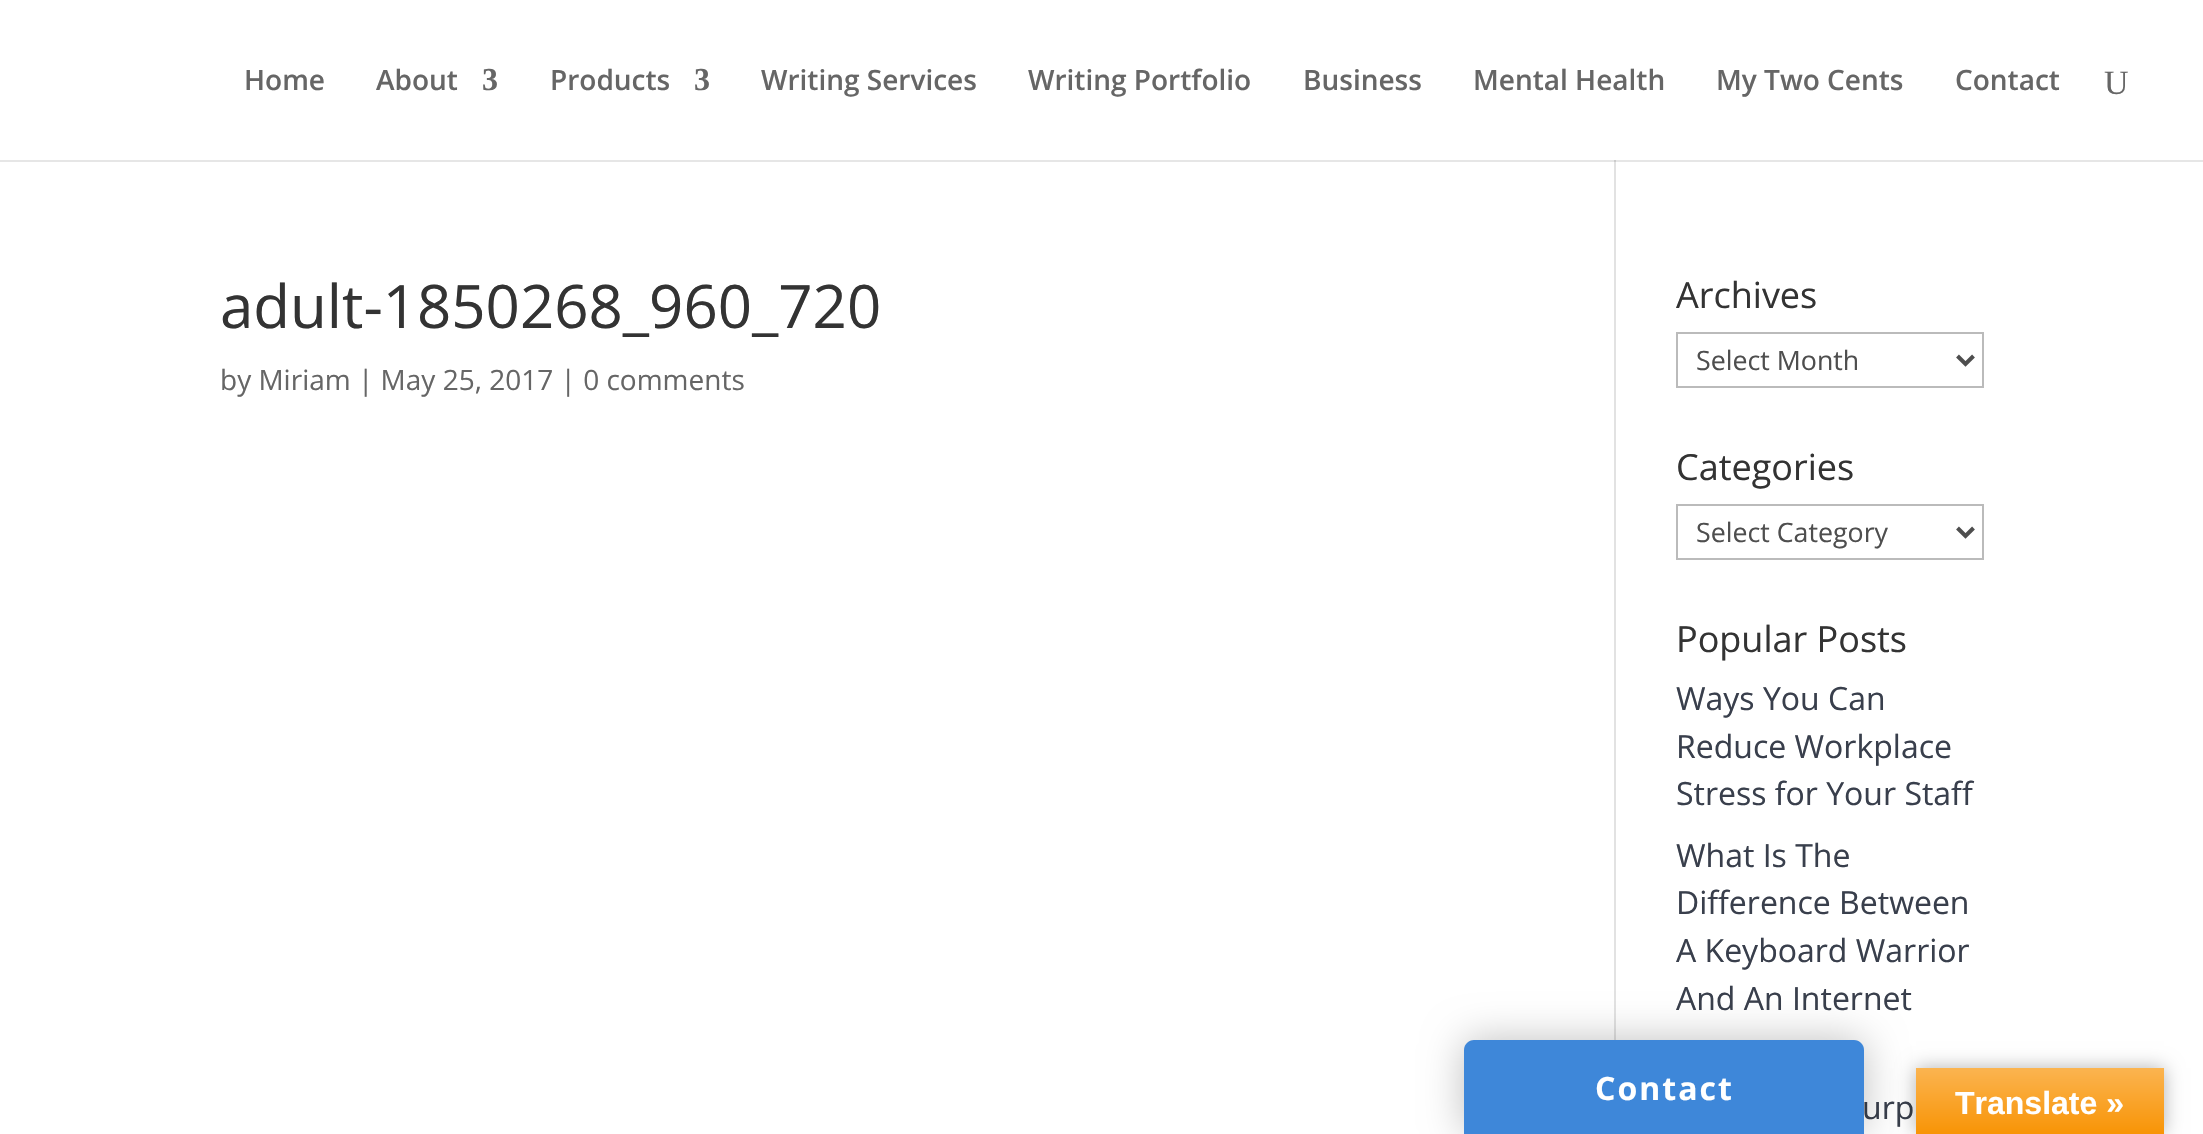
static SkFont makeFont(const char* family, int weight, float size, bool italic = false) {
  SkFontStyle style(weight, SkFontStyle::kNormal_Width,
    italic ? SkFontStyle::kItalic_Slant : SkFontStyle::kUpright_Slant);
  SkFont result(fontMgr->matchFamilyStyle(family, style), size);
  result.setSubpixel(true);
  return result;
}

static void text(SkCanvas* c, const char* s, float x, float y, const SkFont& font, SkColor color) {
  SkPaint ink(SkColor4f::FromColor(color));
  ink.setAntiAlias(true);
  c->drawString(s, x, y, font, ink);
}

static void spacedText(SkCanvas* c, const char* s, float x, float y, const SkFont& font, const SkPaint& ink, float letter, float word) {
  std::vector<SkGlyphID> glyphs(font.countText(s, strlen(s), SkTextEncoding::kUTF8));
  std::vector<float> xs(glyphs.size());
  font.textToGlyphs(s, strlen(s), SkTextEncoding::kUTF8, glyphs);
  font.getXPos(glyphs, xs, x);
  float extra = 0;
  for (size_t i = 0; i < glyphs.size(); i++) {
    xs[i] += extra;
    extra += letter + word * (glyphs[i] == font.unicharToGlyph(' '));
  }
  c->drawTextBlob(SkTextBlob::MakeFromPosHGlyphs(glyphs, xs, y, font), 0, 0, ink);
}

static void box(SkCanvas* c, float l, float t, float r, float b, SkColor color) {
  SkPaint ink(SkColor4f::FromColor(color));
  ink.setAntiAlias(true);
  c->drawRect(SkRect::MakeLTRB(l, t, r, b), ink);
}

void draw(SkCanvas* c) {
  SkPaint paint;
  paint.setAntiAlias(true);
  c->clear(0xffffffff);
  box(c, 0, 160, 2203, 162, 0xffe6e6e6);
  SkFont face1 = makeFont("Open Sans", 600, 28);
  text(c, "Home", 244, 90, face1, 0xff666666);
  text(c, "About", 376, 90, face1, 0xff666666);
  SkFont face2 = makeFont("Liberation Serif", 700, 32);
  text(c, "3", 482, 90, face2, 0xff666666);
  text(c, "Products", 550, 90, face1, 0xff666666);
  text(c, "3", 694, 90, face2, 0xff666666);
  text(c, "Writing Services", 761, 90, face1, 0xff666666);
  text(c, "Writing Portfolio", 1028, 90, face1, 0xff666666);
  text(c, "Business", 1303, 90, face1, 0xff666666);
  text(c, "Mental Health", 1473, 90, face1, 0xff666666);
  text(c, "My Two Cents", 1716, 90, face1, 0xff666666);
  text(c, "Contact", 1955, 90, face1, 0xff666666);
  SkFont face3 = makeFont("Liberation Serif", 400, 34);
  text(c, "U", 2104, 94, face3, 0xff666666);
  box(c, 1614, 160, 1616, 1040, 0xffe2e2e2);
  box(c, 1614, 160, 1616, 162, 0xffcbcbcb);
  SkFont face4 = makeFont("Open Sans", 400, 60);
  text(c, "adult-1850268_960_720", 220, 328, face4, 0xff333333);
  SkFont face5 = makeFont("Open Sans", 400, 28);
  text(c, "by Miriam | May 25, 2017 | 0 comments", 220, 390, face5, 0xff666666);
  SkFont face6 = makeFont("Open Sans", 400, 36);
  text(c, "Archives", 1676, 308, face6, 0xff333333);
  paint.setStyle(SkPaint::kStroke_Style);
  paint.setStrokeWidth(2);
  paint.setColor(0xffbbbbbb);
  c->drawRect(SkRect::MakeLTRB(1677, 333, 1983, 387), paint);
  paint.setStrokeWidth(4);
  paint.setColor(0xff4e4e4e);
  c->drawPath(SkPathBuilder().moveTo(1957.5f, 356).lineTo(1965.5f, 364).lineTo(1973.5f, 356).detach(), paint);
  SkFont face7 = makeFont("Open Sans", 400, 26.75f);
  text(c, "Select Month", 1696, 370, face7, 0xff4e4e4e);
  text(c, "Categories", 1676, 480, face6, 0xff333333);
  paint.setStrokeWidth(2);
  paint.setColor(0xffbbbbbb);
  c->drawRect(SkRect::MakeLTRB(1677, 505, 1983, 559), paint);
  paint.setStrokeWidth(4);
  paint.setColor(0xff4e4e4e);
  c->drawPath(SkPathBuilder().moveTo(1957.5f, 528).lineTo(1965.5f, 536).lineTo(1973.5f, 528).detach(), paint);
  text(c, "Select Category", 1696, 542, face7, 0xff4e4e4e);
  text(c, "Popular Posts", 1676, 652, face6, 0xff333333);
  SkFont face8 = makeFont("Open Sans", 400, 32);
  text(c, "Ways You Can", 1676, 710, face8, 0xff393f4c);
  text(c, "Reduce Workplace", 1676, 758, face8, 0xff393f4c);
  text(c, "Stress for Your Staff", 1676, 805, face8, 0xff393f4c);
  text(c, "What Is The", 1676, 867, face8, 0xff393f4c);
  text(c, "Difference Between", 1676, 914, face8, 0xff393f4c);
  text(c, "A Keyboard Warrior", 1676, 962, face8, 0xff393f4c);
  text(c, "And An Internet", 1676, 1010, face8, 0xff393f4c);
  text(c, "urp", 1862, 1119, face8, 0xff393f4c);
  paint.setStyle(SkPaint::kFill_Style);
  paint.setColor(0x4d000000);
  paint.setMaskFilter(SkMaskFilter::MakeBlur(kNormal_SkBlurStyle, 9));
  c->drawRect(SkRect::MakeLTRB(1916, 1068, 2164, 1134), paint);
  paint.setMaskFilter(nullptr);
  {
    const SkColor colors[] = {0xfffbb450, 0xfff89406};
    const float stops[] = {0, 1};
    const SkPoint ends[] = {{2040, 1068}, {2040, 1134}};
    paint.setShader(SkGradientShader::MakeLinear(ends, colors, stops, 2, SkTileMode::kClamp));
    paint.setAlpha(255);
  }
  c->drawRect(SkRect::MakeLTRB(1916, 1068, 2164, 1134), paint);
  paint.setShader(nullptr);
  paint.setColor(0x40000000);
  paint.setMaskFilter(SkMaskFilter::MakeBlur(kNormal_SkBlurStyle, 20));
  c->drawRoundRect(SkRect::MakeLTRB(1464, 1040, 1864, 1134), 10, 10, paint);
  paint.setMaskFilter(nullptr);
  paint.setColor(0xff3e87d9);
  c->drawPath(SkPathBuilder().moveTo(1474, 1040).lineTo(1854, 1040).cubicTo(1859.5f, 1040, 1864, 1044.5f, 1864, 1050).lineTo(1864, 1134).lineTo(1464, 1134).lineTo(1464, 1050).cubicTo(1464, 1044.5f, 1468.5f, 1040, 1474, 1040).close().detach(), paint);
  SkFont face9 = makeFont("Open Sans", 700, 32);
  paint.setColor(0xffffffff);
  spacedText(c, "Contact", 1595, 1100, face9, paint, 2, 0);
  SkFont face10 = makeFont("Liberation Sans", 700, 32);
  text(c, "Translate »", 1955, 1114, face10, 0xffffffff);
}
